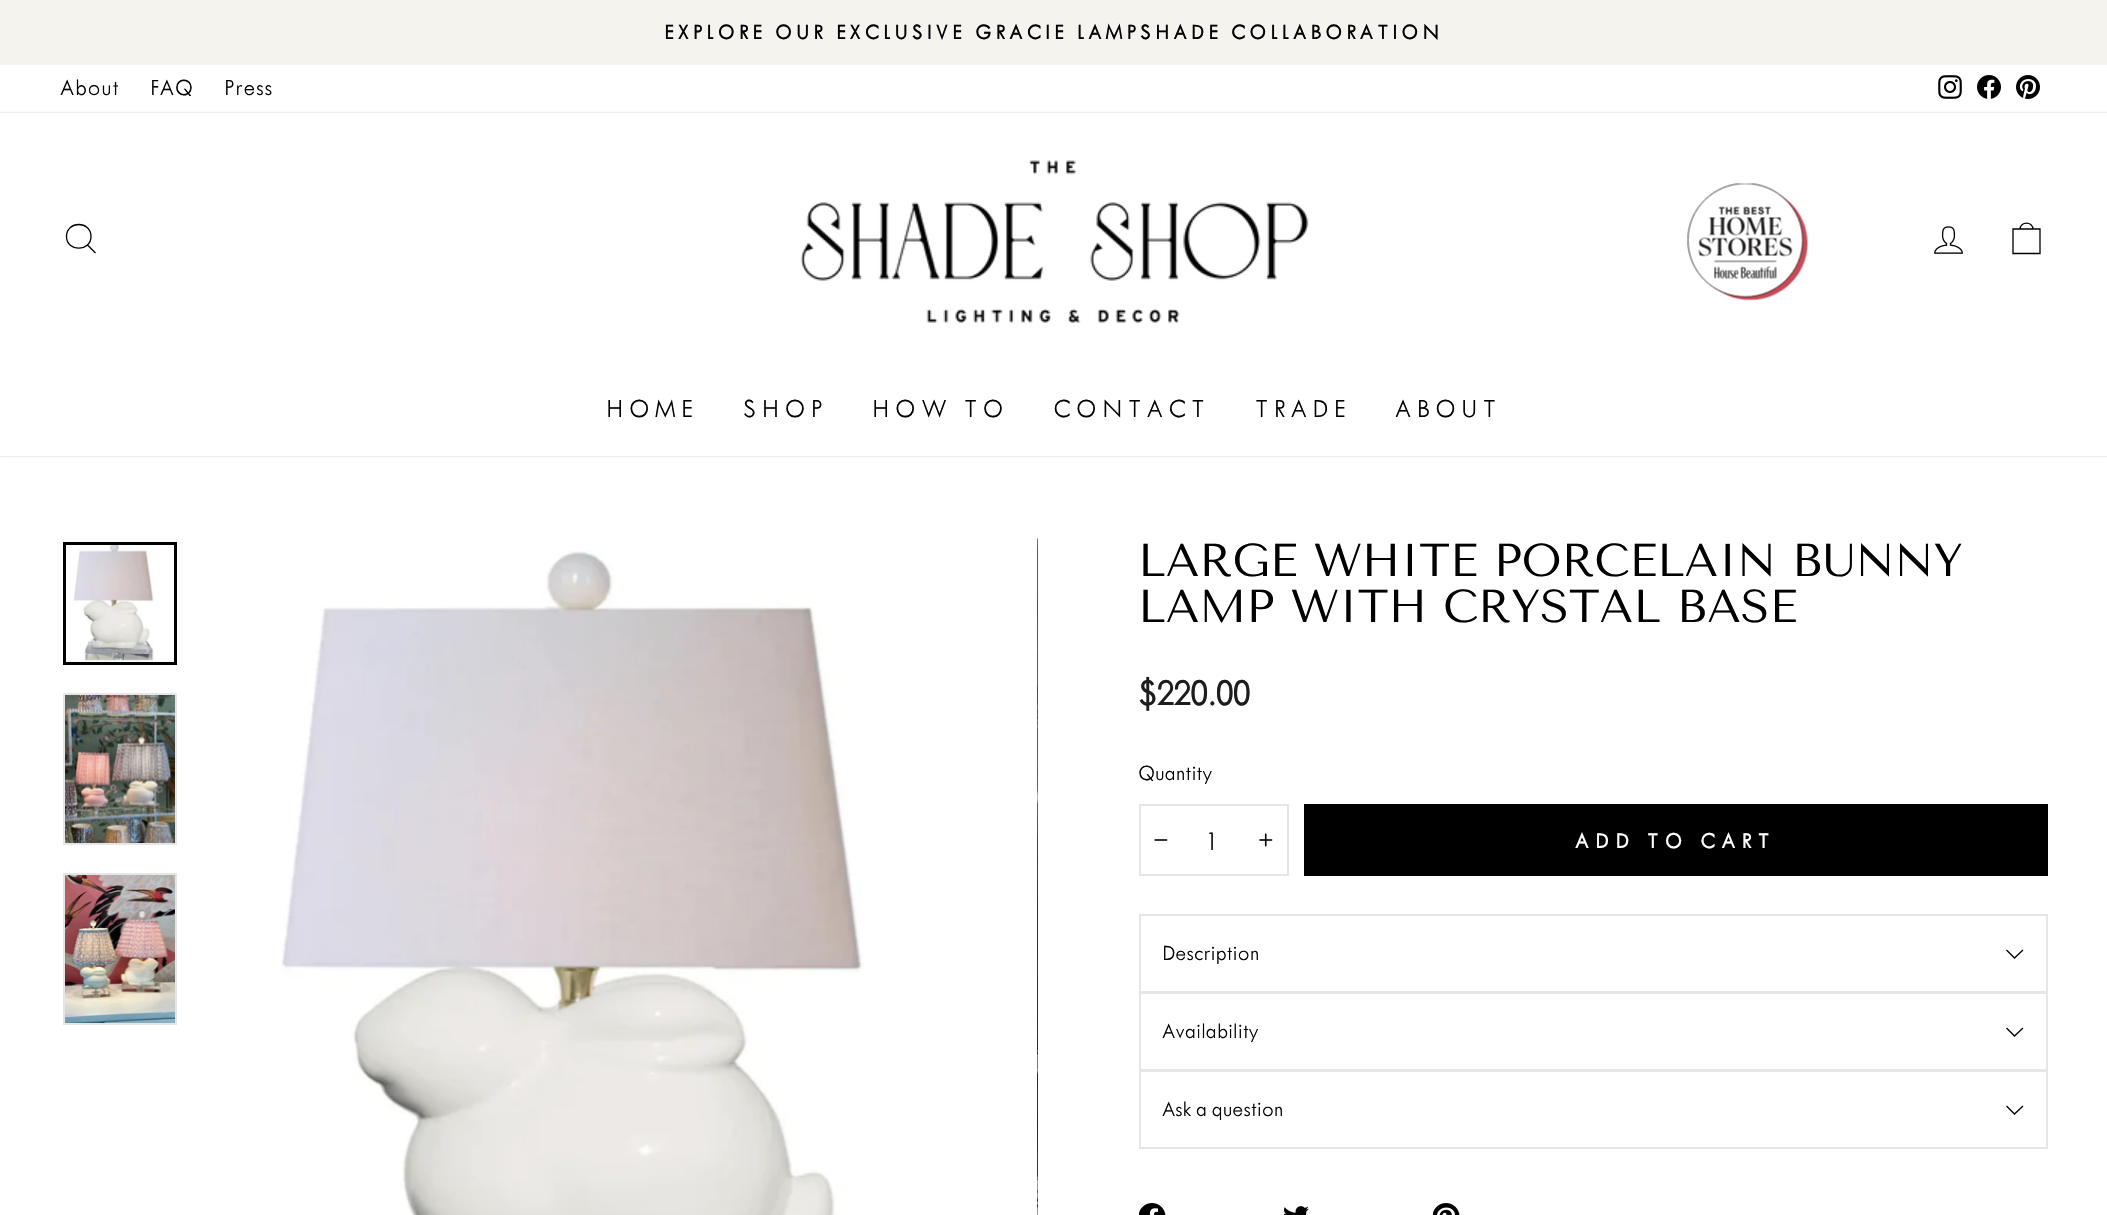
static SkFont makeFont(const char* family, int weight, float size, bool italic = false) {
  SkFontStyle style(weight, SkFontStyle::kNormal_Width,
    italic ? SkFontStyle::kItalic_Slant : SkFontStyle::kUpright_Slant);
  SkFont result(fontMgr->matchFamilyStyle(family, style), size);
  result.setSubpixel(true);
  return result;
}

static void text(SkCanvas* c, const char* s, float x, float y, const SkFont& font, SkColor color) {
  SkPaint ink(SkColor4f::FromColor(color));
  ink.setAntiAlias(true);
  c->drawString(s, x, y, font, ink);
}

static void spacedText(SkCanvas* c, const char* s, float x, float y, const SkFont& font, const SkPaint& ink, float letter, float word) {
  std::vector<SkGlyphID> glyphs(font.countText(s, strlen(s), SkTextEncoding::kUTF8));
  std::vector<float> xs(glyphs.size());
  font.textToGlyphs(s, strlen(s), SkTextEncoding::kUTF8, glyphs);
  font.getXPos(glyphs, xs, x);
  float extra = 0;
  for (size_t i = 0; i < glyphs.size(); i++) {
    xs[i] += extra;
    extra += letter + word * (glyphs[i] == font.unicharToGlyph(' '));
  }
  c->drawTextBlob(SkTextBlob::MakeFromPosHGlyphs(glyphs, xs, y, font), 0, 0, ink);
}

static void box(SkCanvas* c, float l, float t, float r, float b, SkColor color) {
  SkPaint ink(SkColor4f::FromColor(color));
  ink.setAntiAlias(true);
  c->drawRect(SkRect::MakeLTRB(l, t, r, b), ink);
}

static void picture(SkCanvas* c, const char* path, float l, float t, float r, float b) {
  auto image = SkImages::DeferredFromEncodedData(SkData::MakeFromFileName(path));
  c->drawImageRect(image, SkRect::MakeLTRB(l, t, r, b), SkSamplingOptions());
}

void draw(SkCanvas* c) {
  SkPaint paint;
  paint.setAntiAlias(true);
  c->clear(0xffffffff);
  box(c, 0, 0, 2107, 65, 0xfff5f3ee);
  SkFont face1 = makeFont("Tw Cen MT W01", 700, 21.8f);
  paint.setColor(0xff000000);
  spacedText(c, "EXPLORE OUR EXCLUSIVE GRACIE LAMPSHADE COLLABORATION", 664, 39, face1, paint, 4.35f, 0);
  SkFont face2 = makeFont("Tw Cen MT W01", 300, 24);
  spacedText(c, "About", 60, 95, face2, paint, 0.75f, 0);
  spacedText(c, "FAQ", 150, 95, face2, paint, 0.75f, 0);
  spacedText(c, "Press", 224, 95, face2, paint, 0.75f, 0);
  picture(c, "img_01.png", 1938, 75, 1962, 99);
  picture(c, "img_02.png", 1977, 75, 2001, 99);
  picture(c, "img_03.png", 2016, 75, 2040, 99);
  c->save();
  c->clipPath(SkPathBuilder(SkPathFillType::kEvenOdd).moveTo(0, 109).lineTo(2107, 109).lineTo(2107, 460).lineTo(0, 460).close().moveTo(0, 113).lineTo(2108, 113).lineTo(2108, 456).lineTo(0, 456).close().detach(), true);
  paint.setColor(0x33000000);
  paint.setMaskFilter(SkMaskFilter::MakeBlur(kNormal_SkBlurStyle, 1));
  c->drawRect(SkRect::MakeLTRB(0, 113, 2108, 456), paint);
  paint.setMaskFilter(nullptr);
  c->restore();
  paint.setStyle(SkPaint::kStroke_Style);
  paint.setStrokeWidth(1.3f);
  paint.setColor(0xff000000);
  c->drawPath(SkPathBuilder().moveTo(91, 236.5f).cubicTo(91, 252, 66.5f, 252, 66.5f, 236.5f).cubicTo(66.5f, 220.5f, 91, 220.5f, 91, 236.5f).close().moveTo(95.5f, 253).lineTo(87.5f, 245).detach(), paint);
  picture(c, "img_04.png", 800, 160, 1309, 323);
  picture(c, "img_05.png", 1687, 183, 1808, 301);
  picture(c, "img_06.png", 1934, 226, 1963, 254);
  c->drawPath(SkPathBuilder().moveTo(2013, 229).lineTo(2040, 229).lineTo(2040, 253.5f).lineTo(2013, 253.5f).close().moveTo(2020, 229.5f).cubicTo(2020, 221, 2033, 221, 2033, 229.5f).detach(), paint);
  SkFont face3 = makeFont("Tw Cen MT W01", 300, 27);
  paint.setStyle(SkPaint::kFill_Style);
  spacedText(c, "HOME", 606, 417, face3, paint, 5.5f, 0);
  spacedText(c, "SHOP", 743, 417, face3, paint, 5.5f, 0);
  spacedText(c, "HOW TO", 872, 417, face3, paint, 5.5f, 0);
  spacedText(c, "CONTACT", 1053, 417, face3, paint, 5.5f, 0);
  spacedText(c, "TRADE", 1255, 417, face3, paint, 5.5f, 0);
  spacedText(c, "ABOUT", 1395, 417, face3, paint, 5.5f, 0);
  picture(c, "img_07.png", 73, 541, 154, 662);
  paint.setStyle(SkPaint::kStroke_Style);
  paint.setStrokeWidth(3);
  c->drawRect(SkRect::MakeLTRB(64.5f, 543.5f, 175.5f, 663.5f), paint);
  picture(c, "img_08.png", 65, 695, 175, 843);
  paint.setStrokeWidth(2);
  paint.setColor(0xffe6e6e6);
  c->drawRect(SkRect::MakeLTRB(64, 694, 176, 844), paint);
  picture(c, "img_09.png", 65, 875, 175, 1023);
  c->drawRect(SkRect::MakeLTRB(64, 874, 176, 1024), paint);
  picture(c, "img_10.png", 281, 551, 864, 1215);
  picture(c, "img_11.png", 1037, 538, 1038, 1215);
  SkFont face4 = makeFont("Tenor Sans", 400, 45.9f);
  text(c, "LARGE WHITE PORCELAIN BUNNY", 1138, 576, face4, 0xff000000);
  text(c, "LAMP WITH CRYSTAL BASE", 1138, 622, face4, 0xff000000);
  SkFont face5 = makeFont("Tw Cen MT W01", 700, 37.5f);
  paint.setStyle(SkPaint::kFill_Style);
  paint.setColor(0xff1c1d1d);
  spacedText(c, "$220.00", 1138, 705, face5, paint, 0.75f, 0);
  SkFont face6 = makeFont("Tw Cen MT W01", 300, 22.5f);
  text(c, "Quantity", 1138, 780, face6, 0xff000000);
  paint.setStyle(SkPaint::kStroke_Style);
  paint.setColor(0xffe6e6e6);
  c->drawRect(SkRect::MakeLTRB(1140, 805, 1288, 875), paint);
  picture(c, "img_12.png", 1154, 839, 1168, 841);
  SkFont face7 = makeFont("Tw Cen MT W01", 300, 28);
  paint.setStyle(SkPaint::kFill_Style);
  paint.setColor(0xff000000);
  spacedText(c, "1", 1206, 850, face7, paint, 0.75f, 0);
  picture(c, "img_13.png", 1259, 833, 1273, 847);
  box(c, 1304, 804, 2048, 876, 0xff000000);
  SkFont face8 = makeFont("Tw Cen MT W01", 700, 22.5f);
  paint.setColor(0xffffffff);
  spacedText(c, "ADD TO CART", 1575, 848, face8, paint, 6.75f, 0);
  paint.setStyle(SkPaint::kStroke_Style);
  paint.setColor(0xffe6e6e6);
  c->drawRect(SkRect::MakeLTRB(1140, 915, 2047, 992), paint);
  text(c, "Description", 1162, 960, face6, 0xff000000);
  paint.setStrokeWidth(1.3f);
  paint.setColor(0xff000000);
  c->drawPath(SkPathBuilder().moveTo(2006.5f, 950).lineTo(2014.5f, 958).lineTo(2023, 950).detach(), paint);
  paint.setStrokeWidth(2);
  paint.setColor(0xffe6e6e6);
  c->drawRect(SkRect::MakeLTRB(1140, 993, 2047, 1070), paint);
  text(c, "Availability", 1162, 1038, face6, 0xff000000);
  paint.setStrokeWidth(1.3f);
  paint.setColor(0xff000000);
  c->drawPath(SkPathBuilder().moveTo(2006.5f, 1028).lineTo(2014.5f, 1036).lineTo(2023, 1028).detach(), paint);
  paint.setStrokeWidth(2);
  paint.setColor(0xffe6e6e6);
  c->drawRect(SkRect::MakeLTRB(1140, 1071, 2047, 1148), paint);
  text(c, "Ask a question", 1162, 1116, face6, 0xff000000);
  paint.setStrokeWidth(1.3f);
  paint.setColor(0xff000000);
  c->drawPath(SkPathBuilder().moveTo(2006.5f, 1106).lineTo(2014.5f, 1114).lineTo(2023, 1106).detach(), paint);
  picture(c, "img_14.png", 1139, 1203, 1166, 1215);
  picture(c, "img_15.png", 1284, 1206, 1309, 1215);
  picture(c, "img_16.png", 1433, 1203, 1460, 1215);
}
